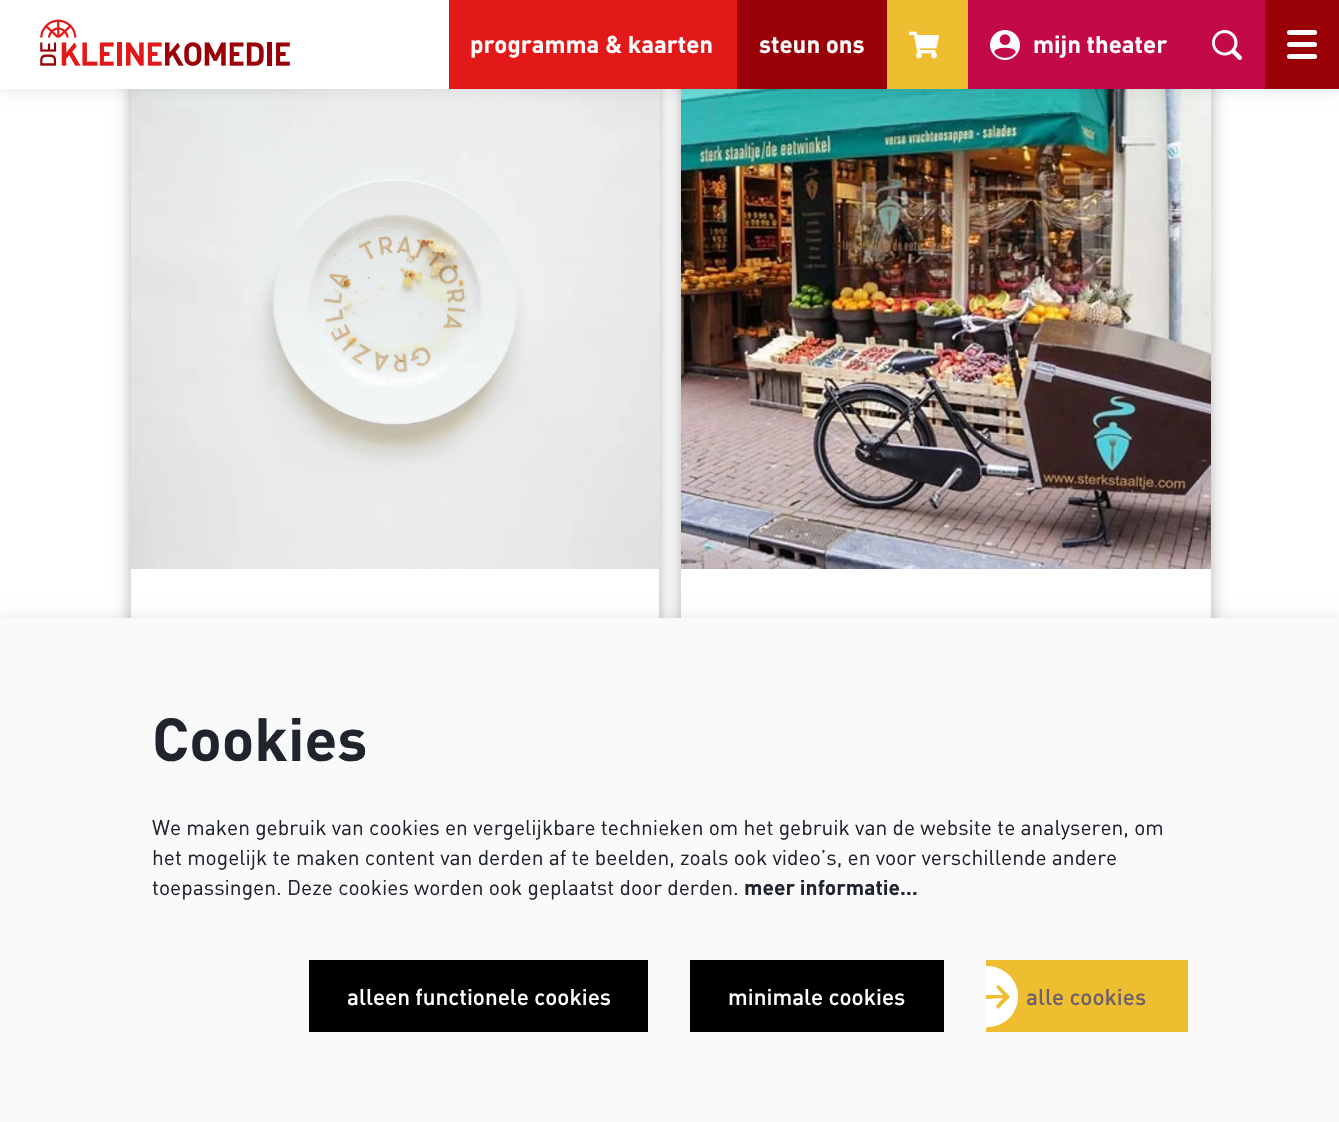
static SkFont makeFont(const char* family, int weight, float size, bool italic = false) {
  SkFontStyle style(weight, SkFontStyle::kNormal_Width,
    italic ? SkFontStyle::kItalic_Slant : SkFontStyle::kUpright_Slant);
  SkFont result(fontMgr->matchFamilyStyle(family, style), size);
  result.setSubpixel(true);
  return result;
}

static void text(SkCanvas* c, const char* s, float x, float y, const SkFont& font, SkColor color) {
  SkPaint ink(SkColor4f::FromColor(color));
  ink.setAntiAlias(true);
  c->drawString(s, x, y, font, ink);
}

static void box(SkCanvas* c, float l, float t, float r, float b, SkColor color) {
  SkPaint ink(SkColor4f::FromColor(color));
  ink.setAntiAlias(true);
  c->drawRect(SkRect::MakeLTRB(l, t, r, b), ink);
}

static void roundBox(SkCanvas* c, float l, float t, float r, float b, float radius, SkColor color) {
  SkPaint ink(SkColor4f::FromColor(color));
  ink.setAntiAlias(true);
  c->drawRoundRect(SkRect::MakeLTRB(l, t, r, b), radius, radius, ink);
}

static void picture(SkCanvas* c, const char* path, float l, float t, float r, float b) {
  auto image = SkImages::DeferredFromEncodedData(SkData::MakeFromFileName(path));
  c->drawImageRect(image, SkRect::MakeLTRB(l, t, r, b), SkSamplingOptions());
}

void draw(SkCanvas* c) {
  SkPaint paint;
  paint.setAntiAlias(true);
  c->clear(0xffffffff);
  paint.setColor(0x4d000000);
  paint.setMaskFilter(SkMaskFilter::MakeBlur(kNormal_SkBlurStyle, 7.5f));
  c->drawRect(SkRect::MakeLTRB(131, 39, 659, 789), paint);
  paint.setMaskFilter(nullptr);
  box(c, 131, 569, 659, 618, 0xffffffff);
  picture(c, "img_01.png", 131, 89, 660, 569);
  paint.setMaskFilter(SkMaskFilter::MakeBlur(kNormal_SkBlurStyle, 7.5f));
  c->drawRect(SkRect::MakeLTRB(681, 39, 1211, 789), paint);
  paint.setMaskFilter(nullptr);
  box(c, 681, 569, 1211, 618, 0xffffffff);
  picture(c, "img_02.png", 681, 89, 1211, 569);
  paint.setColor(0x1a000000);
  paint.setMaskFilter(SkMaskFilter::MakeBlur(kNormal_SkBlurStyle, 7.5f));
  c->drawRect(SkRect::MakeLTRB(0, 0, 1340, 89), paint);
  paint.setMaskFilter(nullptr);
  box(c, 0, 0, 449, 89, 0xffffffff);
  picture(c, "img_03.png", 40, 19, 290, 66);
  box(c, 449, 0, 737, 89, 0xffe31818);
  SkFont face1 = makeFont("DIN", 700, 24);
  text(c, "programma & kaarten", 470, 53, face1, 0xffffffff);
  box(c, 737, 0, 887, 89, 0xff990008);
  text(c, "steun ons", 759, 53, face1, 0xffffffff);
  box(c, 887, 0, 968, 89, 0xffeebe30);
  picture(c, "img_04.png", 909, 31, 939, 59);
  box(c, 968, 0, 1265, 89, 0xffc3094a);
  picture(c, "img_05.png", 990, 30, 1020, 60);
  text(c, "mijn theater", 1033, 53, face1, 0xffffffff);
  picture(c, "img_06.png", 1212, 30, 1242, 60);
  box(c, 1265, 0, 1339, 89, 0xff990008);
  roundBox(c, 1287, 30, 1317, 35, 2.5f, 0xffffffff);
  roundBox(c, 1287, 42, 1317, 47, 2.5f, 0xffffffff);
  roundBox(c, 1287, 54, 1317, 59, 2.5f, 0xffffffff);
  paint.setMaskFilter(SkMaskFilter::MakeBlur(kNormal_SkBlurStyle, 7.5f));
  c->drawRect(SkRect::MakeLTRB(0, 618, 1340, 1122), paint);
  paint.setMaskFilter(nullptr);
  box(c, 0, 618, 1339, 1122, 0xfffafafa);
  SkFont face2 = makeFont("DIN", 700, 60);
  text(c, "Cookies", 152, 761, face2, 0xff1f242d);
  SkFont face3 = makeFont("DIN", 400, 21);
  text(c, "We maken gebruik van cookies en vergelijkbare technieken om het gebruik van de website te analyseren, om", 152, 835, face3, 0xff1f242d);
  text(c, "het mogelijk te maken content van derden af te beelden, zoals ook video’s, en voor verschillende andere", 152, 865, face3, 0xff1f242d);
  text(c, "toepassingen. Deze cookies worden ook geplaatst door derden.", 152, 895, face3, 0xff1f242d);
  SkFont face4 = makeFont("DIN", 700, 21);
  text(c, "meer informatie…", 744, 895, face4, 0xff1f242d);
  box(c, 309, 960, 648, 1032, 0xff000000);
  SkFont face5 = makeFont("DIN", 500, 22.5f);
  text(c, "alleen functionele cookies", 347, 1005, face5, 0xffffffff);
  box(c, 690, 960, 944, 1032, 0xff000000);
  text(c, "minimale cookies", 728, 1005, face5, 0xffffffff);
  box(c, 986, 960, 1188, 1032, 0xffeebe30);
  paint.setColor(0xffffffff);
  c->drawPath(SkPathBuilder(SkPathFillType::kEvenOdd).moveTo(986, 966).lineTo(987, 966).cubicTo(995, 966, 1002, 969, 1008, 974).cubicTo(1028, 992, 1017, 1026, 988, 1027).lineTo(986, 1028).lineTo(986, 999).lineTo(1003, 998).lineTo(996, 1006).lineTo(998, 1009).lineTo(1010, 997).lineTo(999, 985).lineTo(996, 987).lineTo(1003, 995).lineTo(986, 995).close().detach(), paint);
  text(c, "alle cookies", 1026, 1005, face5, 0xff6e606b);
}
